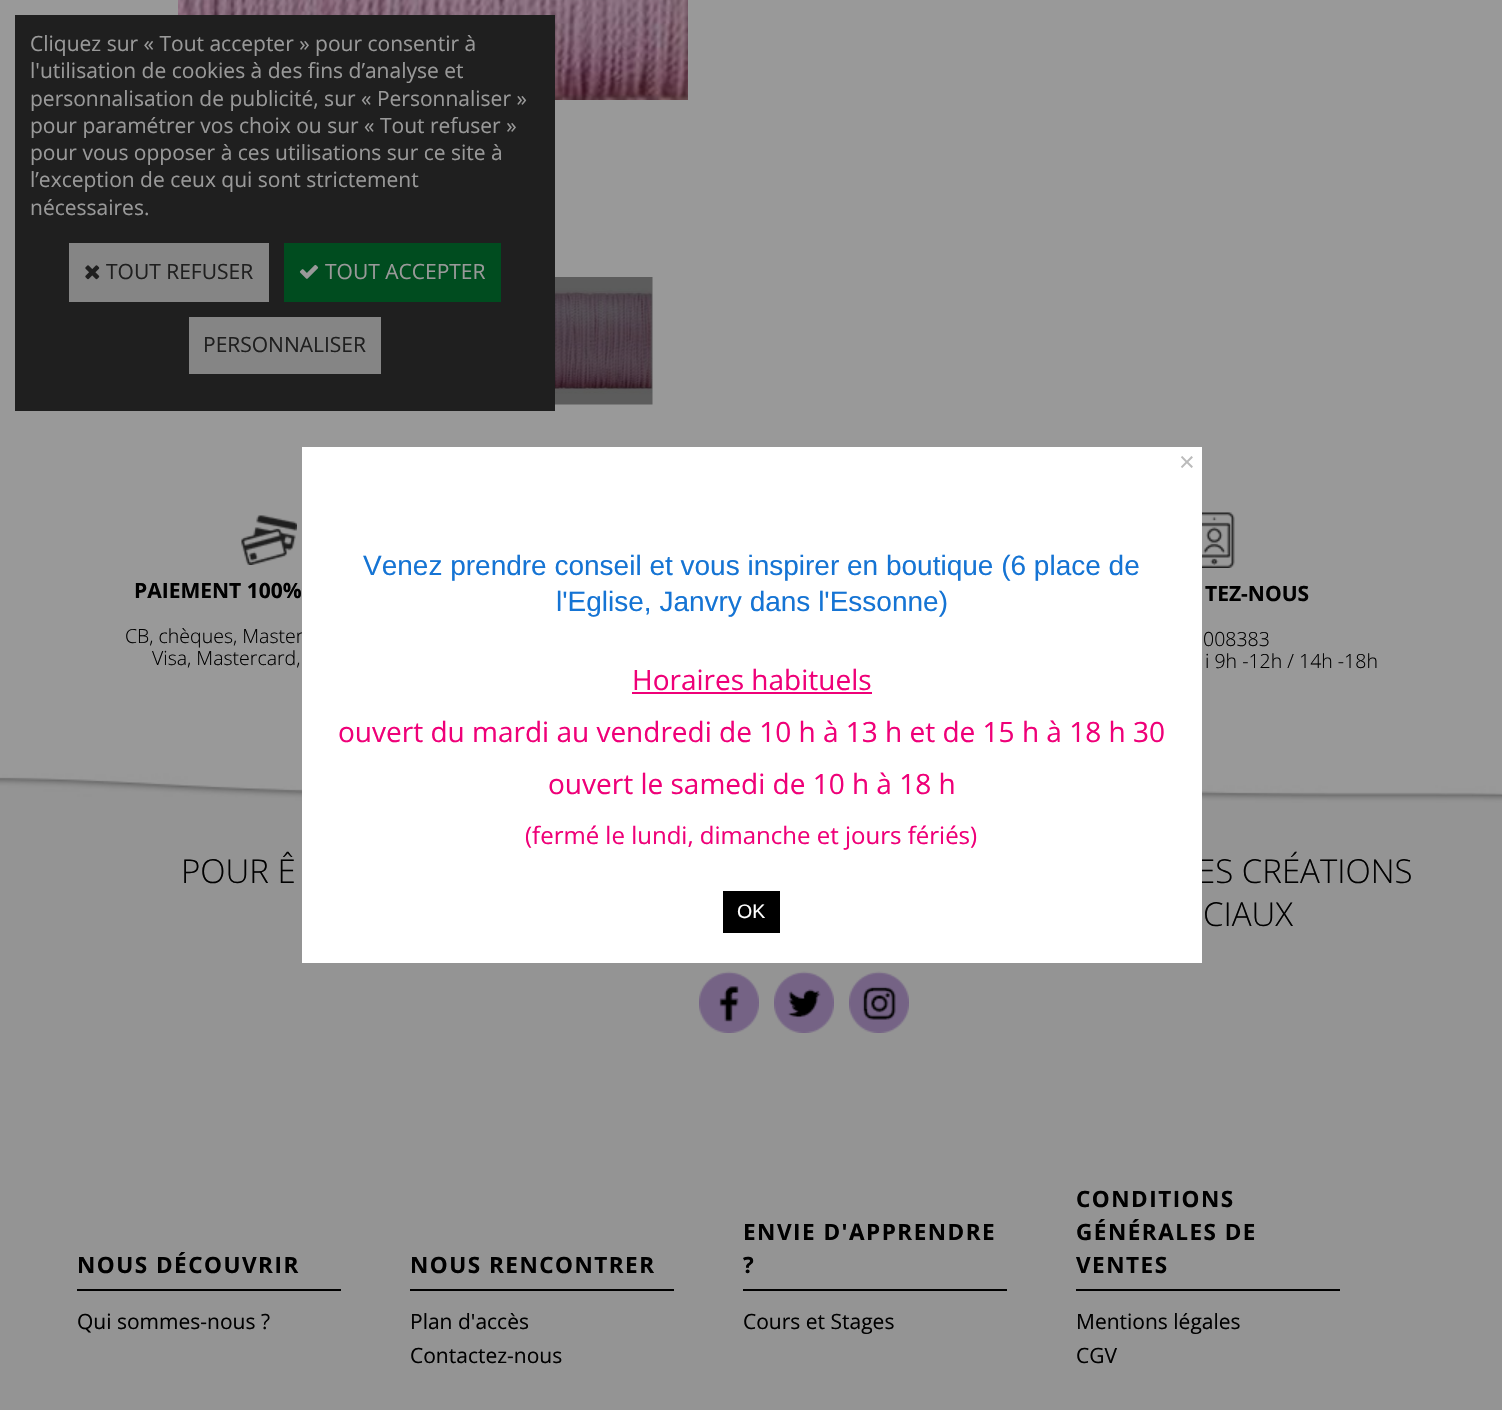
static SkFont makeFont(const char* family, int weight, float size, bool italic = false) {
  SkFontStyle style(weight, SkFontStyle::kNormal_Width,
    italic ? SkFontStyle::kItalic_Slant : SkFontStyle::kUpright_Slant);
  SkFont result(fontMgr->matchFamilyStyle(family, style), size);
  result.setSubpixel(true);
  return result;
}

static void text(SkCanvas* c, const char* s, float x, float y, const SkFont& font, SkColor color) {
  SkPaint ink(SkColor4f::FromColor(color));
  ink.setAntiAlias(true);
  c->drawString(s, x, y, font, ink);
}

static void spacedText(SkCanvas* c, const char* s, float x, float y, const SkFont& font, const SkPaint& ink, float letter, float word) {
  std::vector<SkGlyphID> glyphs(font.countText(s, strlen(s), SkTextEncoding::kUTF8));
  std::vector<float> xs(glyphs.size());
  font.textToGlyphs(s, strlen(s), SkTextEncoding::kUTF8, glyphs);
  font.getXPos(glyphs, xs, x);
  float extra = 0;
  for (size_t i = 0; i < glyphs.size(); i++) {
    xs[i] += extra;
    extra += letter + word * (glyphs[i] == font.unicharToGlyph(' '));
  }
  c->drawTextBlob(SkTextBlob::MakeFromPosHGlyphs(glyphs, xs, y, font), 0, 0, ink);
}

static void box(SkCanvas* c, float l, float t, float r, float b, SkColor color) {
  SkPaint ink(SkColor4f::FromColor(color));
  ink.setAntiAlias(true);
  c->drawRect(SkRect::MakeLTRB(l, t, r, b), ink);
}

static void picture(SkCanvas* c, const char* path, float l, float t, float r, float b) {
  auto image = SkImages::DeferredFromEncodedData(SkData::MakeFromFileName(path));
  c->drawImageRect(image, SkRect::MakeLTRB(l, t, r, b), SkSamplingOptions());
}

void draw(SkCanvas* c) {
  SkPaint paint;
  paint.setAntiAlias(true);
  c->clear(0xff999999);
  picture(c, "img_03.png", 178, 0, 688, 100);
  box(c, 15, 15, 555, 411, 0xff1f1f1f);
  SkFont face1 = makeFont("Open Sans", 400, 21);
  text(c, "Cliquez sur « Tout accepter » pour consentir à", 30, 51, face1, 0xff999999);
  text(c, "l'utilisation de cookies à des fins d’analyse et", 30, 78, face1, 0xff999999);
  text(c, "personnalisation de publicité, sur « Personnaliser »", 30, 106, face1, 0xff999999);
  text(c, "pour paramétrer vos choix ou sur « Tout refuser »", 30, 133, face1, 0xff999999);
  text(c, "pour vous opposer à ces utilisations sur ce site à", 30, 160, face1, 0xff999999);
  text(c, "l’exception de ceux qui sont strictement", 30, 187, face1, 0xff999999);
  text(c, "nécessaires.", 30, 215, face1, 0xff999999);
  box(c, 69, 243, 269, 302, 0xff858585);
  picture(c, "img_01.png", 85, 265, 100, 280);
  text(c, "TOUT REFUSER", 106, 279, face1, 0xff1f1f1f);
  box(c, 284, 243, 501, 302, 0xff004c1f);
  picture(c, "img_02.png", 299, 264, 319, 279);
  text(c, "TOUT ACCEPTER", 325, 279, face1, 0xff999999);
  box(c, 189, 317, 381, 374, 0xff858585);
  text(c, "PERSONNALISER", 203, 352, face1, 0xff1f1f1f);
  picture(c, "img_04.png", 555, 277, 653, 405);
  picture(c, "img_05.png", 241, 515, 297, 565);
  SkFont face2 = makeFont("Open Sans", 700, 21);
  text(c, "PAIEMENT 100%", 134, 598, face2, 0xff000000);
  SkFont face3 = makeFont("Open Sans", 300, 19.5f);
  text(c, "CB, chèques, Master", 125, 643, face3, 0xff000000);
  text(c, "Visa, Mastercard,", 152, 665, face3, 0xff000000);
  picture(c, "img_06.png", 1202, 512, 1235, 568);
  text(c, "TEZ-NOUS", 1205, 601, face2, 0xff000000);
  text(c, "008383", 1203, 646, face3, 0xff000000);
  text(c, "i 9h -12h / 14h -18h", 1205, 668, face3, 0xff000000);
  box(c, 0, 803, 1502, 1410, 0xff949494);
  picture(c, "img_07.png", 0, 750, 1502, 803);
  SkFont face4 = makeFont("Open Sans", 300, 33);
  text(c, "POUR Ê", 181, 883, face4, 0xff000000);
  text(c, "ES CRÉATIONS", 1197, 883, face4, 0xff000000);
  text(c, "CIAUX", 1203, 926, face4, 0xff000000);
  picture(c, "img_08.png", 699, 971, 759, 1033);
  picture(c, "img_09.png", 774, 971, 834, 1033);
  picture(c, "img_10.png", 849, 971, 909, 1033);
  box(c, 77, 1289, 341, 1291, 0xff000000);
  SkFont face5 = makeFont("Open Sans", 700, 22.5f);
  paint.setColor(0xff000000);
  spacedText(c, "NOUS DÉCOUVRIR", 77, 1273, face5, paint, 1.5f, 0);
  box(c, 410, 1289, 674, 1291, 0xff000000);
  spacedText(c, "NOUS RENCONTRER", 410, 1273, face5, paint, 1.5f, 0);
  box(c, 743, 1289, 1007, 1291, 0xff000000);
  spacedText(c, "ENVIE D'APPRENDRE", 743, 1240, face5, paint, 1.5f, 0);
  spacedText(c, "?", 743, 1273, face5, paint, 1.5f, 0);
  box(c, 1076, 1289, 1340, 1291, 0xff000000);
  spacedText(c, "CONDITIONS", 1076, 1207, face5, paint, 1.5f, 0);
  spacedText(c, "GÉNÉRALES DE", 1076, 1240, face5, paint, 1.5f, 0);
  spacedText(c, "VENTES", 1076, 1273, face5, paint, 1.5f, 0);
  text(c, "Qui sommes-nous ?", 77, 1329, face1, 0xff000000);
  text(c, "Plan d'accès", 410, 1329, face1, 0xff000000);
  text(c, "Cours et Stages", 743, 1329, face1, 0xff000000);
  text(c, "Mentions légales", 1076, 1329, face1, 0xff000000);
  text(c, "Contactez-nous", 410, 1363, face1, 0xff000000);
  text(c, "CGV", 1076, 1363, face1, 0xff000000);
  box(c, 302, 447, 1202, 963, 0xffffffff);
  SkFont face6 = makeFont("Liberation Sans", 400, 27);
  text(c, "×", 1179, 471, face6, 0xffbbbbbb);
  SkFont face7 = makeFont("Liberation Sans", 400, 28);
  text(c, "Venez prendre conseil et vous inspirer en boutique (6 place de", 363, 575, face7, 0xff1574d4);
  text(c, "l'Eglise, Janvry dans l'Essonne)", 556, 611, face7, 0xff1574d4);
  SkFont face8 = makeFont("Open Sans", 400, 28);
  text(c, "Horaires habituels", 632, 690, face8, 0xffef0078);
  box(c, 632, 692, 872, 694, 0xffef0078);
  text(c, "ouvert du mardi au vendredi de 10 h à 13 h et de 15 h à 18 h 30", 338, 742, face8, 0xffef0078);
  text(c, "ouvert le samedi de 10 h à 18 h", 548, 794, face8, 0xffef0078);
  SkFont face9 = makeFont("Open Sans", 400, 24);
  text(c, "(fermé le lundi, dimanche et jours fériés)", 525, 844, face9, 0xffef0078);
  box(c, 723, 891, 780, 933, 0xff000000);
  SkFont face10 = makeFont("Liberation Sans", 400, 19.5f);
  text(c, "OK", 737, 918, face10, 0xffffffff);
}
